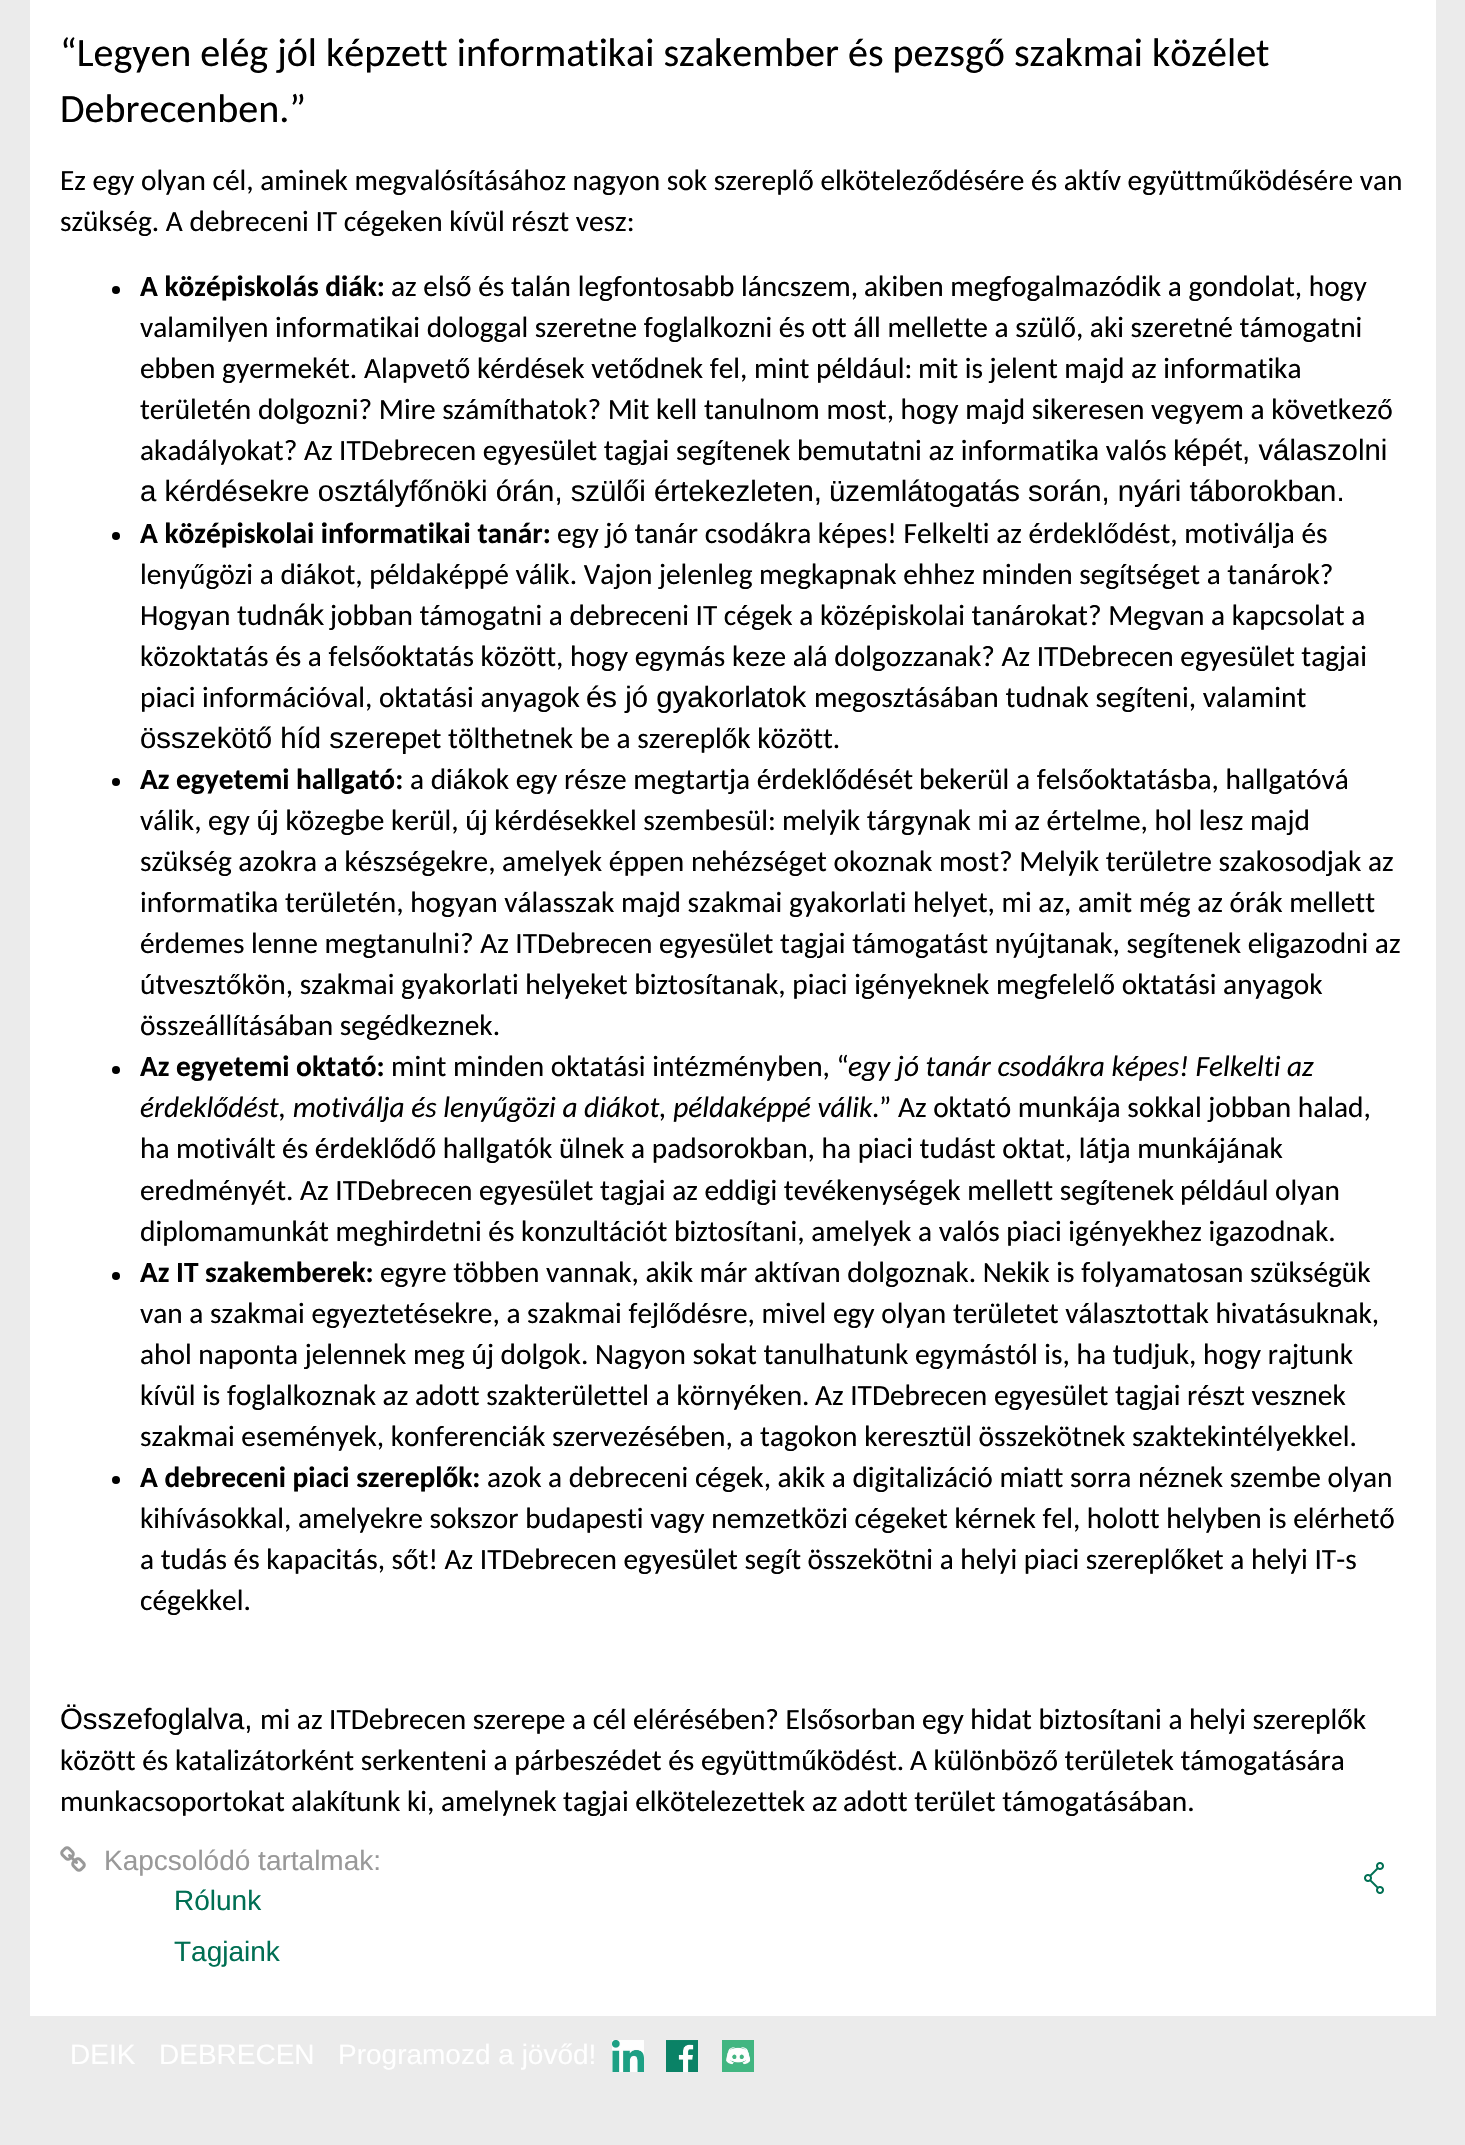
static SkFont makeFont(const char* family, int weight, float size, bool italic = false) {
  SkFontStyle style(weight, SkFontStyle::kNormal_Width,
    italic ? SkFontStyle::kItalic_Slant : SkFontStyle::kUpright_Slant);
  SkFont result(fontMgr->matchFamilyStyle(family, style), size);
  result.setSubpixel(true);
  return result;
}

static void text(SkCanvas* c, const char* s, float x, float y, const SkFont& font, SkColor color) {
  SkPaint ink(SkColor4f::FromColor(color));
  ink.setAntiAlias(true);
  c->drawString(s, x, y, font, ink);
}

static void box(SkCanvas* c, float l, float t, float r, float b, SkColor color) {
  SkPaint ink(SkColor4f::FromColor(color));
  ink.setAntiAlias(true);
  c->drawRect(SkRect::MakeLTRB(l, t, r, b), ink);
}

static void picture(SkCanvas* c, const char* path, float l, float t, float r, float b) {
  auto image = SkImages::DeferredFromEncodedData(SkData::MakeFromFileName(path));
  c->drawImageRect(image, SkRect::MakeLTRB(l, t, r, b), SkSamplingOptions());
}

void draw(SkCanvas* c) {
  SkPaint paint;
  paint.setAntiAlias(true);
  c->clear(0xffebebeb);
  box(c, 30, 0, 1436, 2016, 0xffffffff);
  SkFont face1 = makeFont("Carlito", 400, 40);
  text(c, "“Legyen elég jól képzett informatikai szakember és pezsgő szakmai közélet", 60, 66, face1, 0xff000000);
  text(c, "Debrecenben.”", 60, 122, face1, 0xff000000);
  SkFont face2 = makeFont("Carlito", 400, 29.35f);
  text(c, "Ez egy olyan cél, aminek megvalósításához nagyon sok szereplő elköteleződésére és aktív együttműködésére van", 60, 190, face2, 0xff000000);
  text(c, "szükség. A debreceni IT cégeken kívül részt vesz:", 60, 231, face2, 0xff000000);
  paint.setColor(0xff000000);
  c->drawCircle(116, 290, 4, paint);
  SkFont face3 = makeFont("Carlito", 700, 29.35f);
  text(c, "A középiskolás diák:", 140, 296, face3, 0xff000000);
  text(c, "az első és talán legfontosabb láncszem,", 391, 296, face2, 0xff000000);
  text(c, "akiben megfogalmazódik a gondolat, hogy", 864, 296, face2, 0xff000000);
  text(c, "valamilyen informatikai dologgal szeretne foglalkozni és ott áll mellette a szülő, aki szeretné támogatni", 140, 337, face2, 0xff000000);
  text(c, "ebben gyermekét. Alapvető kérdések vetődnek fel, mint például:", 140, 378, face2, 0xff000000);
  text(c, "mit is jelent majd az informatika", 918, 378, face2, 0xff000000);
  text(c, "területén dolgozni? Mire számíthatok? Mit kell tanulnom most, hogy majd sikeresen vegyem a következő", 140, 419, face2, 0xff000000);
  text(c, "akadályokat? Az ITDebrecen egyesület tagjai segítenek bemutatni az informatika valós k", 140, 460, face2, 0xff000000);
  SkFont face4 = makeFont("Liberation Sans", 400, 29.35f);
  text(c, "épét, válaszolni", 1185, 460, face4, 0xff000000);
  text(c, "a kérdésekre osztályfőnöki órán, szülői értekezleten,", 140, 501, face4, 0xff000000);
  text(c, "üzemlátogatás során, nyári táborokban.", 829, 501, face4, 0xff000000);
  c->drawCircle(116, 536, 4, paint);
  text(c, "A középiskolai informatikai tanár:", 140, 543, face3, 0xff000000);
  text(c, "egy jó tanár csodákra képes! Felkelti az érdeklődést, motiválja és", 557, 543, face2, 0xff000000);
  text(c, "lenyűgözi a diákot, példaképpé válik. Vajon jelenleg megkapnak ehhez minden segítséget a tanárok?", 140, 584, face2, 0xff000000);
  text(c, "Hogyan tudn", 140, 625, face2, 0xff000000);
  text(c, "ák", 293, 625, face4, 0xff000000);
  text(c, "jobban támogatni a debreceni IT cégek a középiskolai tanárokat? Megvan a kapcsolat a", 330, 625, face2, 0xff000000);
  text(c, "közoktatás és a felsőoktatás között, hogy egymás keze alá dolgozzanak? Az ITDebrecen egyesület tagjai", 140, 666, face2, 0xff000000);
  text(c, "piaci információval, oktatási anyagok", 140, 707, face2, 0xff000000);
  text(c, "és jó gyakorlatok", 586, 707, face4, 0xff000000);
  text(c, "megosztásában tudnak segíteni, valamint", 814, 707, face2, 0xff000000);
  text(c, "összekötő híd szerep", 140, 748, face4, 0xff000000);
  text(c, "et tölthetnek be a szereplők között.", 417, 748, face2, 0xff000000);
  c->drawCircle(116, 782, 4, paint);
  text(c, "Az egyetemi hallgató:", 140, 789, face3, 0xff000000);
  text(c, "a diákok egy része megtartja érdeklődését", 410, 789, face2, 0xff000000);
  text(c, "bekerül a felsőoktatásba, hallgatóvá", 919, 789, face2, 0xff000000);
  text(c, "válik, egy új közegbe kerül, új kérdésekkel szembesül:", 140, 830, face2, 0xff000000);
  text(c, "melyik tárgynak mi az értelme, hol lesz majd", 782, 830, face2, 0xff000000);
  text(c, "szükség azokra a készségekre, amelyek éppen nehézséget okoznak most? Melyik területre szakosodjak az", 140, 871, face2, 0xff000000);
  text(c, "informatika területén, hogyan válasszak majd szakmai gyakorlati helyet, mi az, amit még az órák mellett", 140, 912, face2, 0xff000000);
  text(c, "érdemes lenne megtanulni? Az ITDebrecen egyesület tagjai támogatást nyújtanak, segítenek eligazodni az", 140, 953, face2, 0xff000000);
  text(c, "útvesztőkön, szakmai gyakorlati helyeket biztosítanak, piaci igényeknek megfelelő oktatási anyagok", 140, 994, face2, 0xff000000);
  text(c, "összeállításában segédkeznek.", 140, 1035, face2, 0xff000000);
  c->drawCircle(116, 1070, 4, paint);
  text(c, "Az egyetemi oktató:", 140, 1076, face3, 0xff000000);
  text(c, "mint minden oktatási intézményben, “", 391, 1076, face2, 0xff000000);
  SkFont face5 = makeFont("Carlito", 400, 29.35f, true);
  text(c, "egy jó tanár csodákra képes! Felkelti az", 848, 1076, face5, 0xff000000);
  text(c, "érdeklődést, motiválja és lenyűgözi a diákot, példaképpé válik.", 140, 1117, face5, 0xff000000);
  text(c, "” Az oktató munkája sokkal jobban halad,", 879, 1117, face2, 0xff000000);
  text(c, "ha motivált és érdeklődő hallgatók ülnek a padsorokban, ha piaci tudást oktat, látja munkájának", 140, 1158, face2, 0xff000000);
  text(c, "eredményét. Az ITDebrecen egyesület tagjai az eddigi tevékenységek mellett segítenek", 140, 1200, face2, 0xff000000);
  text(c, "például olyan", 1180, 1200, face2, 0xff000000);
  text(c, "diplomamunkát meghirdetni és konzultációt biztosítani, amelyek a valós piaci igényekhez igazodnak.", 140, 1241, face2, 0xff000000);
  c->drawCircle(116, 1276, 4, paint);
  text(c, "Az IT szakemberek:", 140, 1282, face3, 0xff000000);
  text(c, "egyre többen vannak, akik már aktívan dolgoznak. Nekik is folyamatosan szükségük", 380, 1282, face2, 0xff000000);
  text(c, "van a szakmai egyeztetésekre, a szakmai fejlődésre, mivel egy olyan területet választottak hivatásuknak,", 140, 1323, face2, 0xff000000);
  text(c, "ahol naponta jelennek meg új dolgok. Nagyon sokat tanulhatunk egymástól is, ha tudjuk, hogy rajtunk", 140, 1364, face2, 0xff000000);
  text(c, "kívül is foglalkoznak az adott szakterülettel a környéken.", 140, 1405, face2, 0xff000000);
  text(c, "Az ITDebrecen egyesület tagjai részt vesznek", 815, 1405, face2, 0xff000000);
  text(c, "szakmai események, konferenciák szervezésében, a tagokon keresztül összekötnek szaktekintélyekkel.", 140, 1446, face2, 0xff000000);
  c->drawCircle(116, 1480, 4, paint);
  text(c, "A debreceni piaci szereplők:", 140, 1487, face3, 0xff000000);
  text(c, "azok a debreceni cégek, akik a digitalizáció miatt sorra néznek szembe olyan", 487, 1487, face2, 0xff000000);
  text(c, "kihívásokkal, amelyekre sokszor budapesti vagy nemzetközi cégeket kérnek fel, holott helyben is elérhető", 140, 1528, face2, 0xff000000);
  text(c, "a tudás és kapacitás, sőt! Az ITDebrecen egyesület segít összekötni a helyi piaci szereplőket a helyi IT-s", 140, 1569, face2, 0xff000000);
  text(c, "cégekkel.", 140, 1610, face2, 0xff000000);
  text(c, "Összefoglalva,", 60, 1729, face4, 0xff000000);
  text(c, "mi az ITDebrecen szerepe a cél elérésében? Elsősorban", 260, 1729, face2, 0xff000000);
  text(c, "egy hidat biztosítani a helyi szereplők", 922, 1729, face2, 0xff000000);
  text(c, "között és katalizátorként serkenteni a párbeszédet és együttműködést.", 60, 1770, face2, 0xff000000);
  text(c, "A különböző területek támogatására", 910, 1770, face2, 0xff000000);
  text(c, "munkacsoportokat alakítunk ki, amelynek tagjai elkötelezettek az", 60, 1811, face2, 0xff000000);
  text(c, "adott terület támogatásában.", 843, 1811, face2, 0xff000000);
  picture(c, "img_01.png", 60, 1846, 86, 1872);
  SkFont face6 = makeFont("Liberation Sans", 400, 28);
  text(c, "Kapcsolódó tartalmak:", 104, 1870, face6, 0xff999999);
  text(c, "Rólunk", 174, 1910, face6, 0xff006f53);
  text(c, "Tagjaink", 174, 1961, face6, 0xff006f53);
  picture(c, "img_02.png", 1364, 1862, 1384, 1894);
  text(c, "DEIK", 70, 2064, face6, 0xffffffff);
  text(c, "DEBRECEN", 159, 2064, face6, 0xffffffff);
  text(c, "Programozd a jövőd!", 338, 2064, face6, 0xffffffff);
  picture(c, "img_03.png", 612, 2040, 644, 2072);
  picture(c, "img_04.png", 666, 2040, 698, 2072);
  picture(c, "img_05.png", 722, 2040, 754, 2072);
}
